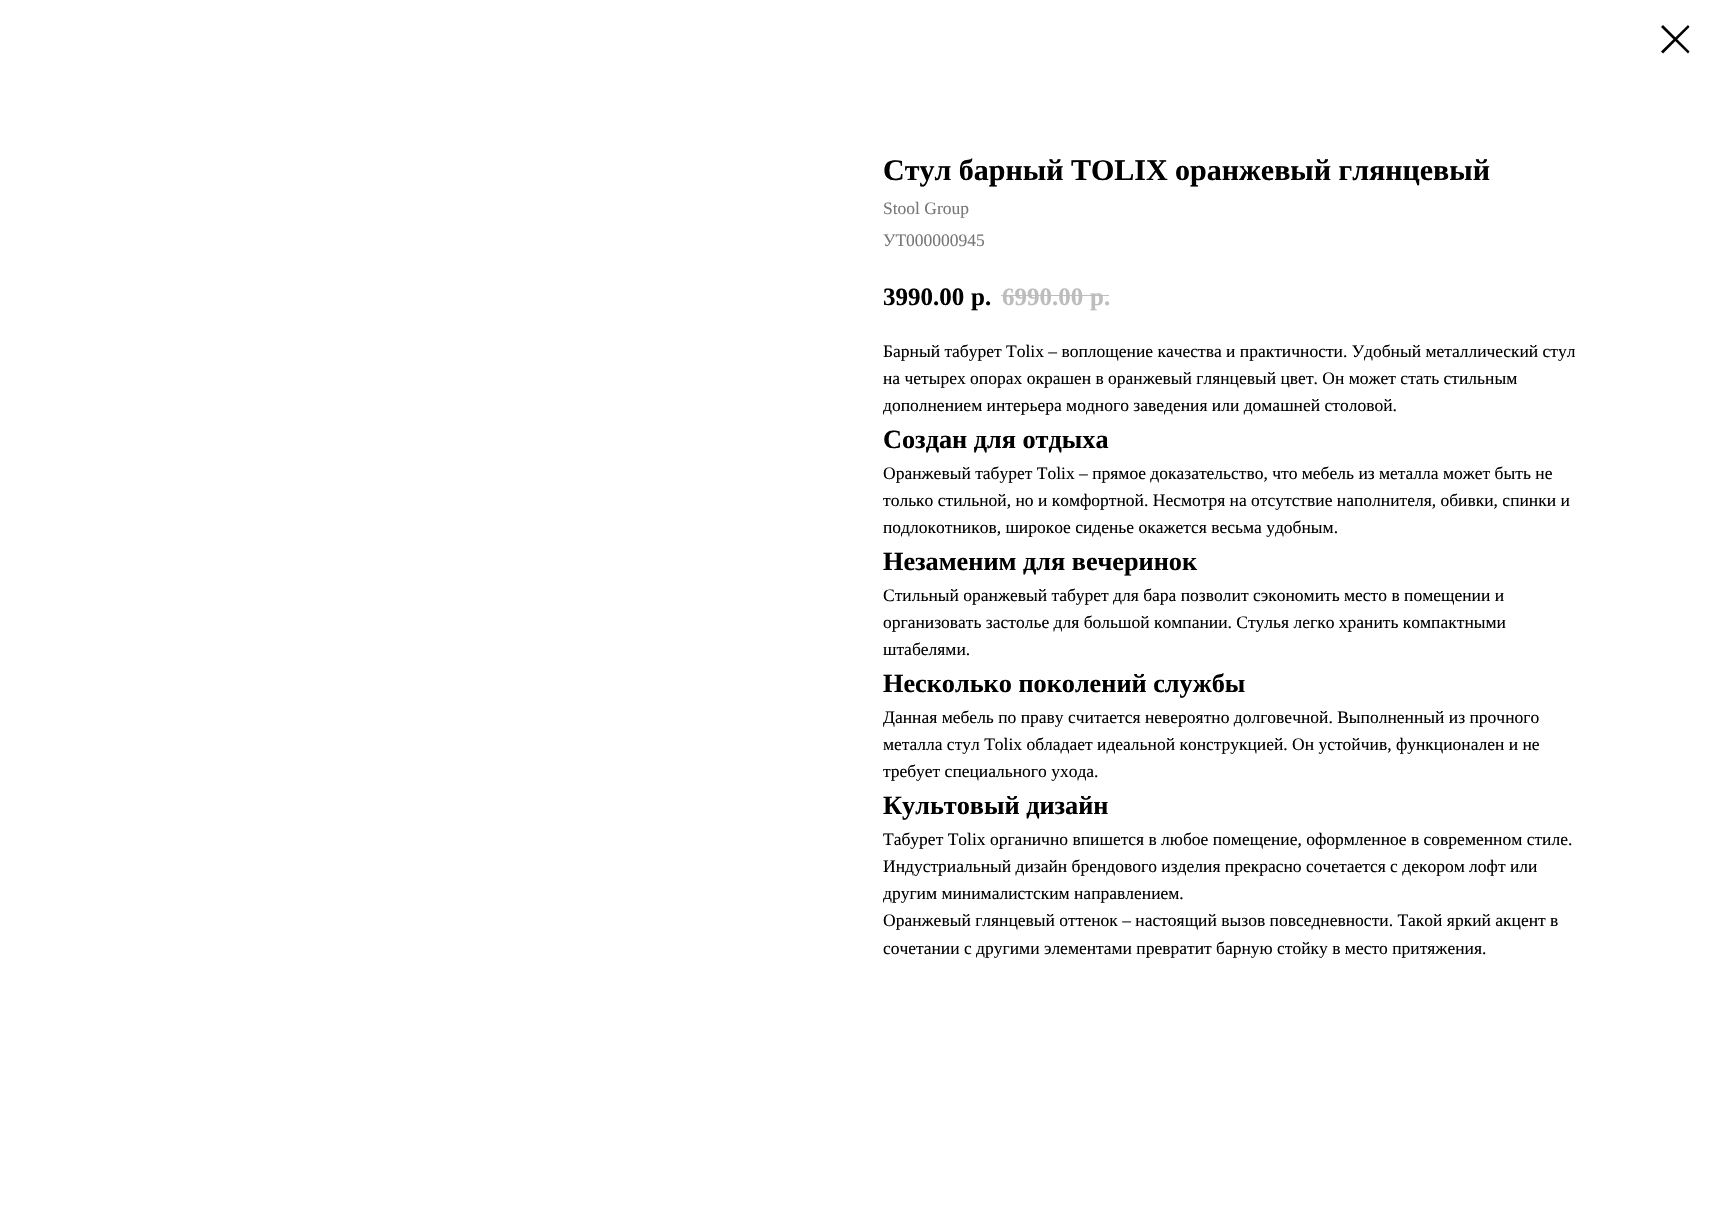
static SkFont makeFont(const char* family, int weight, float size, bool italic = false) {
  SkFontStyle style(weight, SkFontStyle::kNormal_Width,
    italic ? SkFontStyle::kItalic_Slant : SkFontStyle::kUpright_Slant);
  SkFont result(fontMgr->matchFamilyStyle(family, style), size);
  result.setSubpixel(true);
  return result;
}

static void text(SkCanvas* c, const char* s, float x, float y, const SkFont& font, SkColor color) {
  SkPaint ink(SkColor4f::FromColor(color));
  ink.setAntiAlias(true);
  c->drawString(s, x, y, font, ink);
}

static void box(SkCanvas* c, float l, float t, float r, float b, SkColor color) {
  SkPaint ink(SkColor4f::FromColor(color));
  ink.setAntiAlias(true);
  c->drawRect(SkRect::MakeLTRB(l, t, r, b), ink);
}

void draw(SkCanvas* c) {
  SkPaint paint;
  paint.setAntiAlias(true);
  c->clear(0xffffffff);
  paint.setColor(0xff000000);
  c->drawPath(SkPathBuilder(SkPathFillType::kEvenOdd).moveTo(1661, 27).lineTo(1663, 25).lineTo(1689.5f, 51.5f).lineTo(1688, 53.5f).close().detach(), paint);
  c->drawPath(SkPathBuilder(SkPathFillType::kEvenOdd).moveTo(1688, 25).lineTo(1689.5f, 27).lineTo(1663, 53.5f).lineTo(1661, 51.5f).close().detach(), paint);
  SkFont face1 = makeFont("Liberation Serif", 700, 30);
  text(c, "Стул барный TOLIX оранжевый глянцевый", 883, 180, face1, 0xff000000);
  SkFont face2 = makeFont("Liberation Serif", 400, 17.5f);
  text(c, "Stool Group", 883, 214, face2, 0xff777777);
  text(c, "УТ000000945", 883, 246, face2, 0xff777777);
  SkFont face3 = makeFont("Liberation Serif", 700, 25);
  text(c, "3990.00", 883, 305, face3, 0xff000000);
  text(c, "р.", 971, 305, face3, 0xff000000);
  text(c, "6990.00", 1002, 305, face3, 0xffbdbdbd);
  text(c, "р.", 1090, 305, face3, 0xffbdbdbd);
  box(c, 1001, 295, 1109, 296, 0xffbdbdbd);
  text(c, "Барный табурет Tolix – воплощение качества и практичности. Удобный металлический стул", 883, 357, face2, 0xff000000);
  text(c, "на четырех опорах окрашен в оранжевый глянцевый цвет. Он может стать стильным", 883, 384, face2, 0xff000000);
  text(c, "дополнением интерьера модного заведения или домашней столовой.", 883, 411, face2, 0xff000000);
  SkFont face4 = makeFont("Liberation Serif", 700, 26.25f);
  text(c, "Создан для отдыха", 883, 448, face4, 0xff000000);
  text(c, "Оранжевый табурет Tolix – прямое доказательство, что мебель из металла может быть не", 883, 479, face2, 0xff000000);
  text(c, "только стильной, но и комфортной. Несмотря на отсутствие наполнителя, обивки, спинки и", 883, 506, face2, 0xff000000);
  text(c, "подлокотников, широкое сиденье окажется весьма удобным.", 883, 533, face2, 0xff000000);
  text(c, "Незаменим для вечеринок", 883, 570, face4, 0xff000000);
  text(c, "Стильный оранжевый табурет для бара позволит сэкономить место в помещении и", 883, 601, face2, 0xff000000);
  text(c, "организовать застолье для большой компании. Стулья легко хранить компактными", 883, 628, face2, 0xff000000);
  text(c, "штабелями.", 883, 655, face2, 0xff000000);
  text(c, "Несколько поколений службы", 883, 692, face4, 0xff000000);
  text(c, "Данная мебель по праву считается невероятно долговечной. Выполненный из прочного", 883, 723, face2, 0xff000000);
  text(c, "металла стул Tolix обладает идеальной конструкцией. Он устойчив, функционален и не", 883, 750, face2, 0xff000000);
  text(c, "требует специального ухода.", 883, 777, face2, 0xff000000);
  text(c, "Культовый дизайн", 883, 814, face4, 0xff000000);
  text(c, "Табурет Tolix органично впишется в любое помещение, оформленное в современном стиле.", 883, 845, face2, 0xff000000);
  text(c, "Индустриальный дизайн брендового изделия прекрасно сочетается с декором лофт или", 883, 872, face2, 0xff000000);
  text(c, "другим минималистским направлением.", 883, 899, face2, 0xff000000);
  text(c, "Оранжевый глянцевый оттенок – настоящий вызов повседневности. Такой яркий акцент в", 883, 926, face2, 0xff000000);
  text(c, "сочетании с другими элементами превратит барную стойку в место притяжения.", 883, 954, face2, 0xff000000);
}
